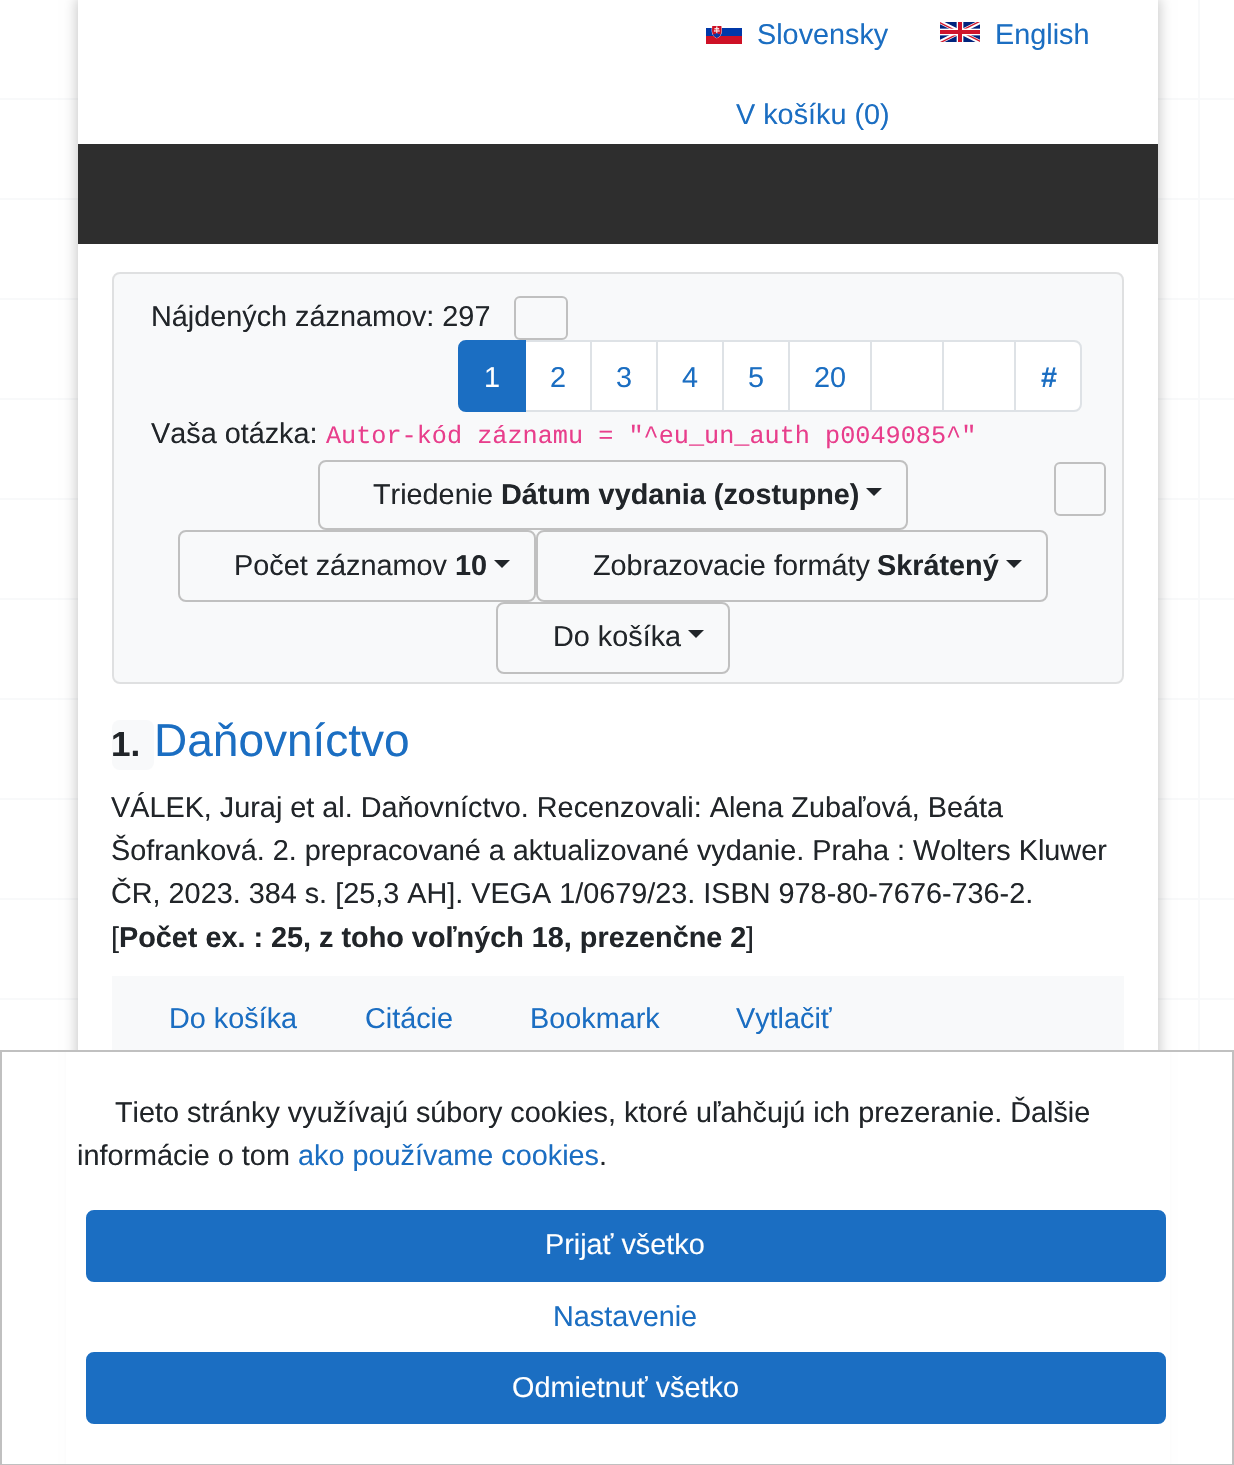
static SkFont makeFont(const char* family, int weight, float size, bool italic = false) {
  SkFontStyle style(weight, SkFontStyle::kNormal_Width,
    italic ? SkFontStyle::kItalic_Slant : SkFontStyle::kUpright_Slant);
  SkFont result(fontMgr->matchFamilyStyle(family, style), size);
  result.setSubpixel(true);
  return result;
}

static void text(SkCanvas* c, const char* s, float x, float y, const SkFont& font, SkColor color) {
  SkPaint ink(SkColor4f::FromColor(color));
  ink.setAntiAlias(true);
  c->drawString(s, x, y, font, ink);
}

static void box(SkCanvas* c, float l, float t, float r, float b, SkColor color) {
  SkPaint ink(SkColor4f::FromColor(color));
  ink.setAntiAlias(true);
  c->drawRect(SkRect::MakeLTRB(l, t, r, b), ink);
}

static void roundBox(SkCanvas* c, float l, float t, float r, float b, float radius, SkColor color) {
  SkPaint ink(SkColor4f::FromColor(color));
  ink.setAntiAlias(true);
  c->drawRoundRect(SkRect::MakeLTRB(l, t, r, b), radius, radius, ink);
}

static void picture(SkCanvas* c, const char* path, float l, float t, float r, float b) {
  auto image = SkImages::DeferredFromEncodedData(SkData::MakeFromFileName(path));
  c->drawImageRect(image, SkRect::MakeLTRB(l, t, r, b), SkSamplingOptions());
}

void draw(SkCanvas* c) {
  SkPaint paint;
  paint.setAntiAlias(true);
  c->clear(0xffffffff);
  box(c, 1198, 0, 1200, 1050, 0xfff8f9fa);
  box(c, 0, 98, 1234, 100, 0xfff8f9fa);
  box(c, 0, 198, 1234, 200, 0xfff8f9fa);
  box(c, 0, 298, 1234, 300, 0xfff8f9fa);
  box(c, 0, 398, 1234, 400, 0xfff8f9fa);
  box(c, 0, 498, 1234, 500, 0xfff8f9fa);
  box(c, 0, 598, 1234, 600, 0xfff8f9fa);
  box(c, 0, 698, 1234, 700, 0xfff8f9fa);
  box(c, 0, 798, 1234, 800, 0xfff8f9fa);
  box(c, 0, 898, 1234, 900, 0xfff8f9fa);
  box(c, 0, 998, 1234, 1000, 0xfff8f9fa);
  paint.setColor(0x33000000);
  paint.setMaskFilter(SkMaskFilter::MakeBlur(kNormal_SkBlurStyle, 6));
  c->drawRect(SkRect::MakeLTRB(76, -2, 1160, 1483), paint);
  paint.setMaskFilter(nullptr);
  box(c, 78, 0, 1158, 1050, 0xffffffff);
  picture(c, "img_01.png", 706, 26, 742, 44);
  SkFont face1 = makeFont("Liberation Sans", 400, 28.8f);
  text(c, "Slovensky", 757, 44, face1, 0xff1b6ec2);
  picture(c, "img_02.png", 940, 22, 980, 42);
  text(c, "English", 995, 44, face1, 0xff1b6ec2);
  text(c, "V košíku (0)", 736, 124, face1, 0xff1b6ec2);
  box(c, 78, 144, 1158, 244, 0xff2e2e2e);
  roundBox(c, 112, 272, 1124, 684, 8, 0xfff8f9fa);
  paint.setStyle(SkPaint::kStroke_Style);
  paint.setStrokeWidth(2);
  paint.setColor(0x1f333333);
  c->drawRoundRect(SkRect::MakeLTRB(113, 273, 1123, 683), 7, 7, paint);
  text(c, "Nájdených záznamov: 297", 151, 326, face1, 0xff212529);
  paint.setColor(0xffc0c0c0);
  c->drawRoundRect(SkRect::MakeLTRB(515, 297, 567, 339), 5, 5, paint);
  paint.setStyle(SkPaint::kFill_Style);
  paint.setColor(0xffffffff);
  c->drawRect(SkRect::MakeLTRB(525, 341, 591, 411), paint);
  paint.setStyle(SkPaint::kStroke_Style);
  paint.setColor(0xffdee2e6);
  c->drawRect(SkRect::MakeLTRB(525, 341, 591, 411), paint);
  paint.setStyle(SkPaint::kFill_Style);
  paint.setColor(0xff1b6ec2);
  c->drawPath(SkPathBuilder().moveTo(466, 341).lineTo(525, 341).lineTo(525, 411).lineTo(466, 411).cubicTo(462, 411, 459, 408, 459, 404).lineTo(459, 348).cubicTo(459, 344, 462, 341, 466, 341).close().detach(), paint);
  paint.setStyle(SkPaint::kStroke_Style);
  c->drawPath(SkPathBuilder().moveTo(466, 341).lineTo(525, 341).lineTo(525, 411).lineTo(466, 411).cubicTo(462, 411, 459, 408, 459, 404).lineTo(459, 348).cubicTo(459, 344, 462, 341, 466, 341).close().detach(), paint);
  text(c, "1", 484, 387, face1, 0xffffffff);
  text(c, "2", 550, 387, face1, 0xff1b6ec2);
  paint.setStyle(SkPaint::kFill_Style);
  paint.setColor(0xffffffff);
  c->drawRect(SkRect::MakeLTRB(591, 341, 657, 411), paint);
  paint.setStyle(SkPaint::kStroke_Style);
  paint.setColor(0xffdee2e6);
  c->drawRect(SkRect::MakeLTRB(591, 341, 657, 411), paint);
  text(c, "3", 616, 387, face1, 0xff1b6ec2);
  paint.setStyle(SkPaint::kFill_Style);
  paint.setColor(0xffffffff);
  c->drawRect(SkRect::MakeLTRB(657, 341, 723, 411), paint);
  paint.setStyle(SkPaint::kStroke_Style);
  paint.setColor(0xffdee2e6);
  c->drawRect(SkRect::MakeLTRB(657, 341, 723, 411), paint);
  text(c, "4", 682, 387, face1, 0xff1b6ec2);
  paint.setStyle(SkPaint::kFill_Style);
  paint.setColor(0xffffffff);
  c->drawRect(SkRect::MakeLTRB(723, 341, 789, 411), paint);
  paint.setStyle(SkPaint::kStroke_Style);
  paint.setColor(0xffdee2e6);
  c->drawRect(SkRect::MakeLTRB(723, 341, 789, 411), paint);
  text(c, "5", 748, 387, face1, 0xff1b6ec2);
  paint.setStyle(SkPaint::kFill_Style);
  paint.setColor(0xffffffff);
  c->drawRect(SkRect::MakeLTRB(789, 341, 871, 411), paint);
  paint.setStyle(SkPaint::kStroke_Style);
  paint.setColor(0xffdee2e6);
  c->drawRect(SkRect::MakeLTRB(789, 341, 871, 411), paint);
  text(c, "20", 814, 387, face1, 0xff1b6ec2);
  paint.setStyle(SkPaint::kFill_Style);
  paint.setColor(0xffffffff);
  c->drawRect(SkRect::MakeLTRB(871, 341, 943, 411), paint);
  paint.setStyle(SkPaint::kStroke_Style);
  paint.setColor(0xffdee2e6);
  c->drawRect(SkRect::MakeLTRB(871, 341, 943, 411), paint);
  paint.setStyle(SkPaint::kFill_Style);
  paint.setColor(0xffffffff);
  c->drawRect(SkRect::MakeLTRB(943, 341, 1015, 411), paint);
  paint.setStyle(SkPaint::kStroke_Style);
  paint.setColor(0xffdee2e6);
  c->drawRect(SkRect::MakeLTRB(943, 341, 1015, 411), paint);
  paint.setStyle(SkPaint::kFill_Style);
  paint.setColor(0xffffffff);
  c->drawPath(SkPathBuilder().moveTo(1015, 341).lineTo(1074, 341).cubicTo(1078, 341, 1081, 344, 1081, 348).lineTo(1081, 404).cubicTo(1081, 408, 1078, 411, 1074, 411).lineTo(1015, 411).close().detach(), paint);
  paint.setStyle(SkPaint::kStroke_Style);
  paint.setColor(0xffdee2e6);
  c->drawPath(SkPathBuilder().moveTo(1015, 341).lineTo(1074, 341).cubicTo(1078, 341, 1081, 344, 1081, 348).lineTo(1081, 404).cubicTo(1081, 408, 1078, 411, 1074, 411).lineTo(1015, 411).close().detach(), paint);
  SkFont face2 = makeFont("Liberation Sans", 700, 28.8f);
  text(c, "#", 1041, 387, face2, 0xff1b6ec2);
  text(c, "Vaša otázka:", 151, 443, face1, 0xff212529);
  SkFont face3 = makeFont("Liberation Mono", 400, 25.2f);
  text(c, "Autor-kód záznamu = \"^eu_un_auth p0049085^\"", 326, 443, face3, 0xffe83e8c);
  paint.setColor(0xffc0c0c0);
  c->drawRoundRect(SkRect::MakeLTRB(319, 461, 907, 529), 7, 7, paint);
  text(c, "Triedenie", 373, 504, face1, 0xff212529);
  text(c, "Dátum vydania (zostupne)", 501, 504, face2, 0xff212529);
  paint.setStyle(SkPaint::kFill_Style);
  paint.setColor(0xff212529);
  c->drawPath(SkPathBuilder().moveTo(866, 488).lineTo(882, 488).lineTo(874, 496).close().detach(), paint);
  paint.setStyle(SkPaint::kStroke_Style);
  paint.setColor(0xffc0c0c0);
  c->drawRoundRect(SkRect::MakeLTRB(179, 531, 535, 601), 7, 7, paint);
  text(c, "Počet záznamov", 234, 575, face1, 0xff212529);
  text(c, "10", 455, 575, face2, 0xff212529);
  paint.setStyle(SkPaint::kFill_Style);
  paint.setColor(0xff212529);
  c->drawPath(SkPathBuilder().moveTo(494, 560).lineTo(510, 560).lineTo(502, 568).close().detach(), paint);
  paint.setStyle(SkPaint::kStroke_Style);
  paint.setColor(0xffc0c0c0);
  c->drawRoundRect(SkRect::MakeLTRB(537, 531, 1047, 601), 7, 7, paint);
  text(c, "Zobrazovacie formáty", 593, 575, face1, 0xff212529);
  text(c, "Skrátený", 877, 575, face2, 0xff212529);
  paint.setStyle(SkPaint::kFill_Style);
  paint.setColor(0xff212529);
  c->drawPath(SkPathBuilder().moveTo(1006, 560).lineTo(1022, 560).lineTo(1014, 568).close().detach(), paint);
  paint.setStyle(SkPaint::kStroke_Style);
  paint.setColor(0xffc0c0c0);
  c->drawRoundRect(SkRect::MakeLTRB(497, 603, 729, 673), 7, 7, paint);
  text(c, "Do košíka", 553, 646, face1, 0xff212529);
  paint.setStyle(SkPaint::kFill_Style);
  paint.setColor(0xff212529);
  c->drawPath(SkPathBuilder().moveTo(688, 630).lineTo(704, 630).lineTo(696, 638).close().detach(), paint);
  paint.setStyle(SkPaint::kStroke_Style);
  paint.setColor(0xffc0c0c0);
  c->drawRoundRect(SkRect::MakeLTRB(1055, 463, 1105, 515), 5, 5, paint);
  roundBox(c, 112, 720, 154, 770, 8, 0xfff8f9fa);
  SkFont face4 = makeFont("Liberation Sans", 700, 35);
  text(c, "1.", 111, 756, face4, 0xff212529);
  SkFont face5 = makeFont("Liberation Sans", 400, 46);
  text(c, "Daňovníctvo", 154, 756, face5, 0xff1b6ec2);
  text(c, "VÁLEK, Juraj et al. Daňovníctvo. Recenzovali: Alena Zubaľová, Beáta", 111, 817, face1, 0xff212529);
  text(c, "Šofranková. 2. prepracované a aktualizované vydanie. Praha : Wolters Kluwer", 111, 860, face1, 0xff212529);
  text(c, "ČR, 2023. 384 s. [25,3 AH]. VEGA 1/0679/23. ISBN 978-80-7676-736-2.", 111, 903, face1, 0xff212529);
  text(c, "[", 111, 947, face1, 0xff212529);
  text(c, "Počet ex. : 25, z toho voľných 18, prezenčne 2", 119, 947, face2, 0xff212529);
  text(c, "]", 746, 947, face1, 0xff212529);
  box(c, 112, 976, 1124, 1050, 0xfff8f9fa);
  text(c, "Do košíka", 169, 1028, face1, 0xff1b6ec2);
  text(c, "Citácie", 365, 1028, face1, 0xff1b6ec2);
  text(c, "Bookmark", 530, 1028, face1, 0xff1b6ec2);
  text(c, "Vytlačiť", 736, 1028, face1, 0xff1b6ec2);
  box(c, 66, 1052, 1170, 1464, 0xffffffff);
  c->drawRect(SkRect::MakeLTRB(1, 1051, 1233, 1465), paint);
  text(c, "Tieto stránky využívajú súbory cookies, ktoré uľahčujú ich prezeranie. Ďalšie", 115, 1122, face1, 0xff212529);
  text(c, "informácie o tom", 77, 1165, face1, 0xff212529);
  text(c, "ako používame cookies", 298, 1165, face1, 0xff1b6ec2);
  text(c, ".", 599, 1165, face1, 0xff212529);
  paint.setStyle(SkPaint::kFill_Style);
  paint.setColor(0xff1b6ec2);
  c->drawRoundRect(SkRect::MakeLTRB(87, 1211, 1165, 1281), 7, 7, paint);
  paint.setStyle(SkPaint::kStroke_Style);
  c->drawRoundRect(SkRect::MakeLTRB(87, 1211, 1165, 1281), 7, 7, paint);
  text(c, "Prijať všetko", 545, 1254, face1, 0xffffffff);
  text(c, "Nastavenie", 553, 1326, face1, 0xff1b6ec2);
  paint.setStyle(SkPaint::kFill_Style);
  c->drawRoundRect(SkRect::MakeLTRB(87, 1353, 1165, 1423), 7, 7, paint);
  paint.setStyle(SkPaint::kStroke_Style);
  c->drawRoundRect(SkRect::MakeLTRB(87, 1353, 1165, 1423), 7, 7, paint);
  text(c, "Odmietnuť všetko", 512, 1397, face1, 0xffffffff);
}
